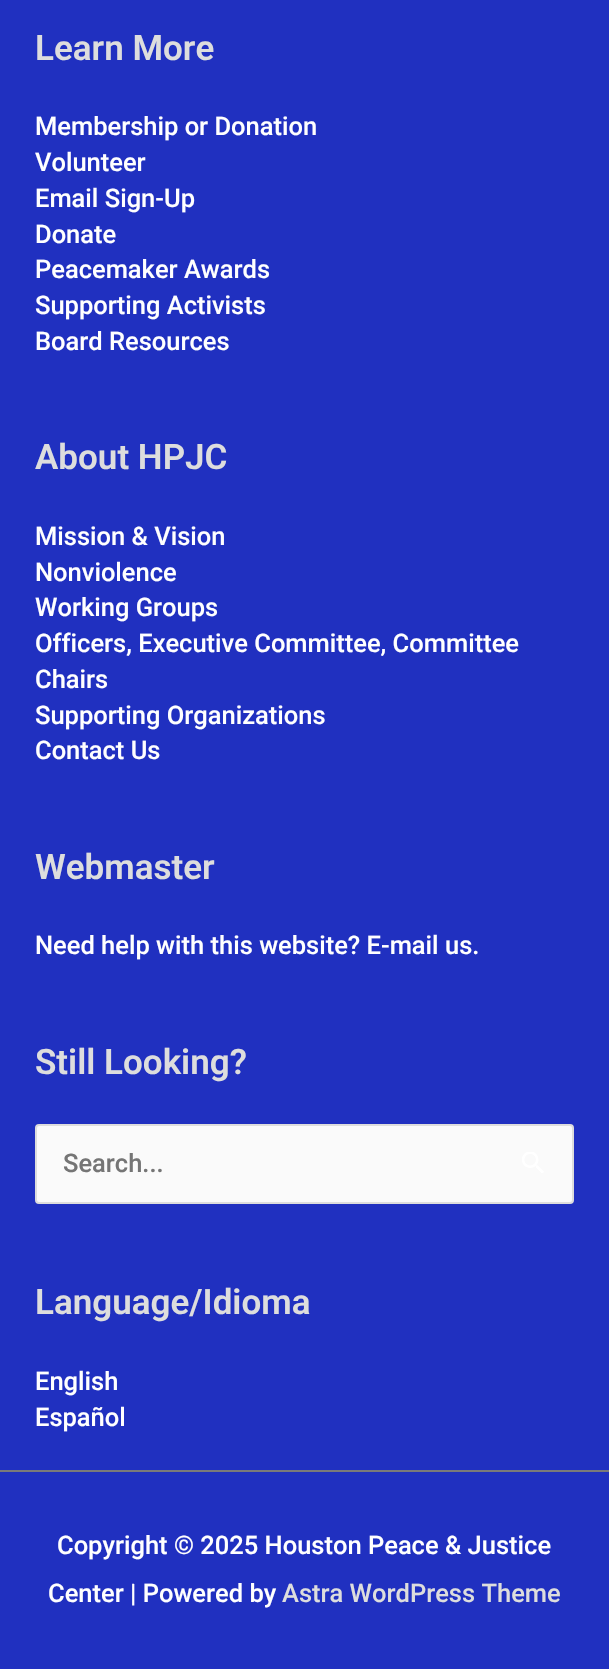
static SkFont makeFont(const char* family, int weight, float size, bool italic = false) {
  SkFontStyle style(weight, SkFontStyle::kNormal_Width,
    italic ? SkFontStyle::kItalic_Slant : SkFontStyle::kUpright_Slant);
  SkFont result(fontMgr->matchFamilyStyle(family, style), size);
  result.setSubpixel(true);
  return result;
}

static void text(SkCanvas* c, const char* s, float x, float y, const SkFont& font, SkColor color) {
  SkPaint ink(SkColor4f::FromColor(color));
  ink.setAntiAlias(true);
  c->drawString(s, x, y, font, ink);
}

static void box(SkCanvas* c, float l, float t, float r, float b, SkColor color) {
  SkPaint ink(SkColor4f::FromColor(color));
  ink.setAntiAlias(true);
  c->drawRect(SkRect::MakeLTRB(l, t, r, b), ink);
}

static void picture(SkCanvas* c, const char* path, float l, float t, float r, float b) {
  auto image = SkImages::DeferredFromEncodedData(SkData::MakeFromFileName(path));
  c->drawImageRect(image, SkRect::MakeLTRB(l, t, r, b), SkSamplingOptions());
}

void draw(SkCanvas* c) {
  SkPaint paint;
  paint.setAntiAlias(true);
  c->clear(0xff2030c0);
  SkFont face1 = makeFont("Roboto", 600, 35);
  text(c, "Learn More", 35, 60, face1, 0xffdddddd);
  SkFont face2 = makeFont("Roboto", 500, 25.5f);
  text(c, "Membership or Donation", 35, 135, face2, 0xffffffff);
  text(c, "Volunteer", 35, 171, face2, 0xffffffff);
  text(c, "Email Sign-Up", 35, 207, face2, 0xffffffff);
  text(c, "Donate", 35, 243, face2, 0xffffffff);
  text(c, "Peacemaker Awards", 35, 278, face2, 0xffffffff);
  text(c, "Supporting Activists", 35, 314, face2, 0xffffffff);
  text(c, "Board Resources", 35, 350, face2, 0xffffffff);
  text(c, "About HPJC", 35, 469, face1, 0xffdddddd);
  text(c, "Mission & Vision", 35, 545, face2, 0xffffffff);
  text(c, "Nonviolence", 35, 581, face2, 0xffffffff);
  text(c, "Working Groups", 35, 616, face2, 0xffffffff);
  text(c, "Officers, Executive Committee, Committee", 35, 652, face2, 0xffffffff);
  text(c, "Chairs", 35, 688, face2, 0xffffffff);
  text(c, "Supporting Organizations", 35, 724, face2, 0xffffffff);
  text(c, "Contact Us", 35, 759, face2, 0xffffffff);
  text(c, "Webmaster", 35, 879, face1, 0xffdddddd);
  text(c, "Need help with this website? E-mail us.", 35, 954, face2, 0xffffffff);
  text(c, "Still Looking?", 35, 1074, face1, 0xffdddddd);
  paint.setColor(0xfffafafa);
  c->drawRoundRect(SkRect::MakeLTRB(36, 1125, 573, 1203), 3, 3, paint);
  paint.setStyle(SkPaint::kStroke_Style);
  paint.setStrokeWidth(2);
  paint.setColor(0xffdddddd);
  c->drawRoundRect(SkRect::MakeLTRB(36, 1125, 573, 1203), 3, 3, paint);
  text(c, "Search...", 63, 1172, face2, 0xff757575);
  picture(c, "img_01.png", 522, 1152, 544, 1173);
  text(c, "Language/Idioma", 35, 1314, face1, 0xffdddddd);
  text(c, "English", 35, 1390, face2, 0xffffffff);
  text(c, "Español", 35, 1426, face2, 0xffffffff);
  box(c, 0, 1470, 609, 1472, 0xff7a7a7a);
  text(c, "Copyright © 2025 Houston Peace & Justice", 57, 1554, face2, 0xffffffff);
  text(c, "Center | Powered by", 48, 1602, face2, 0xffffffff);
  text(c, "Astra WordPress Theme", 282, 1602, face2, 0xffdddddd);
}
